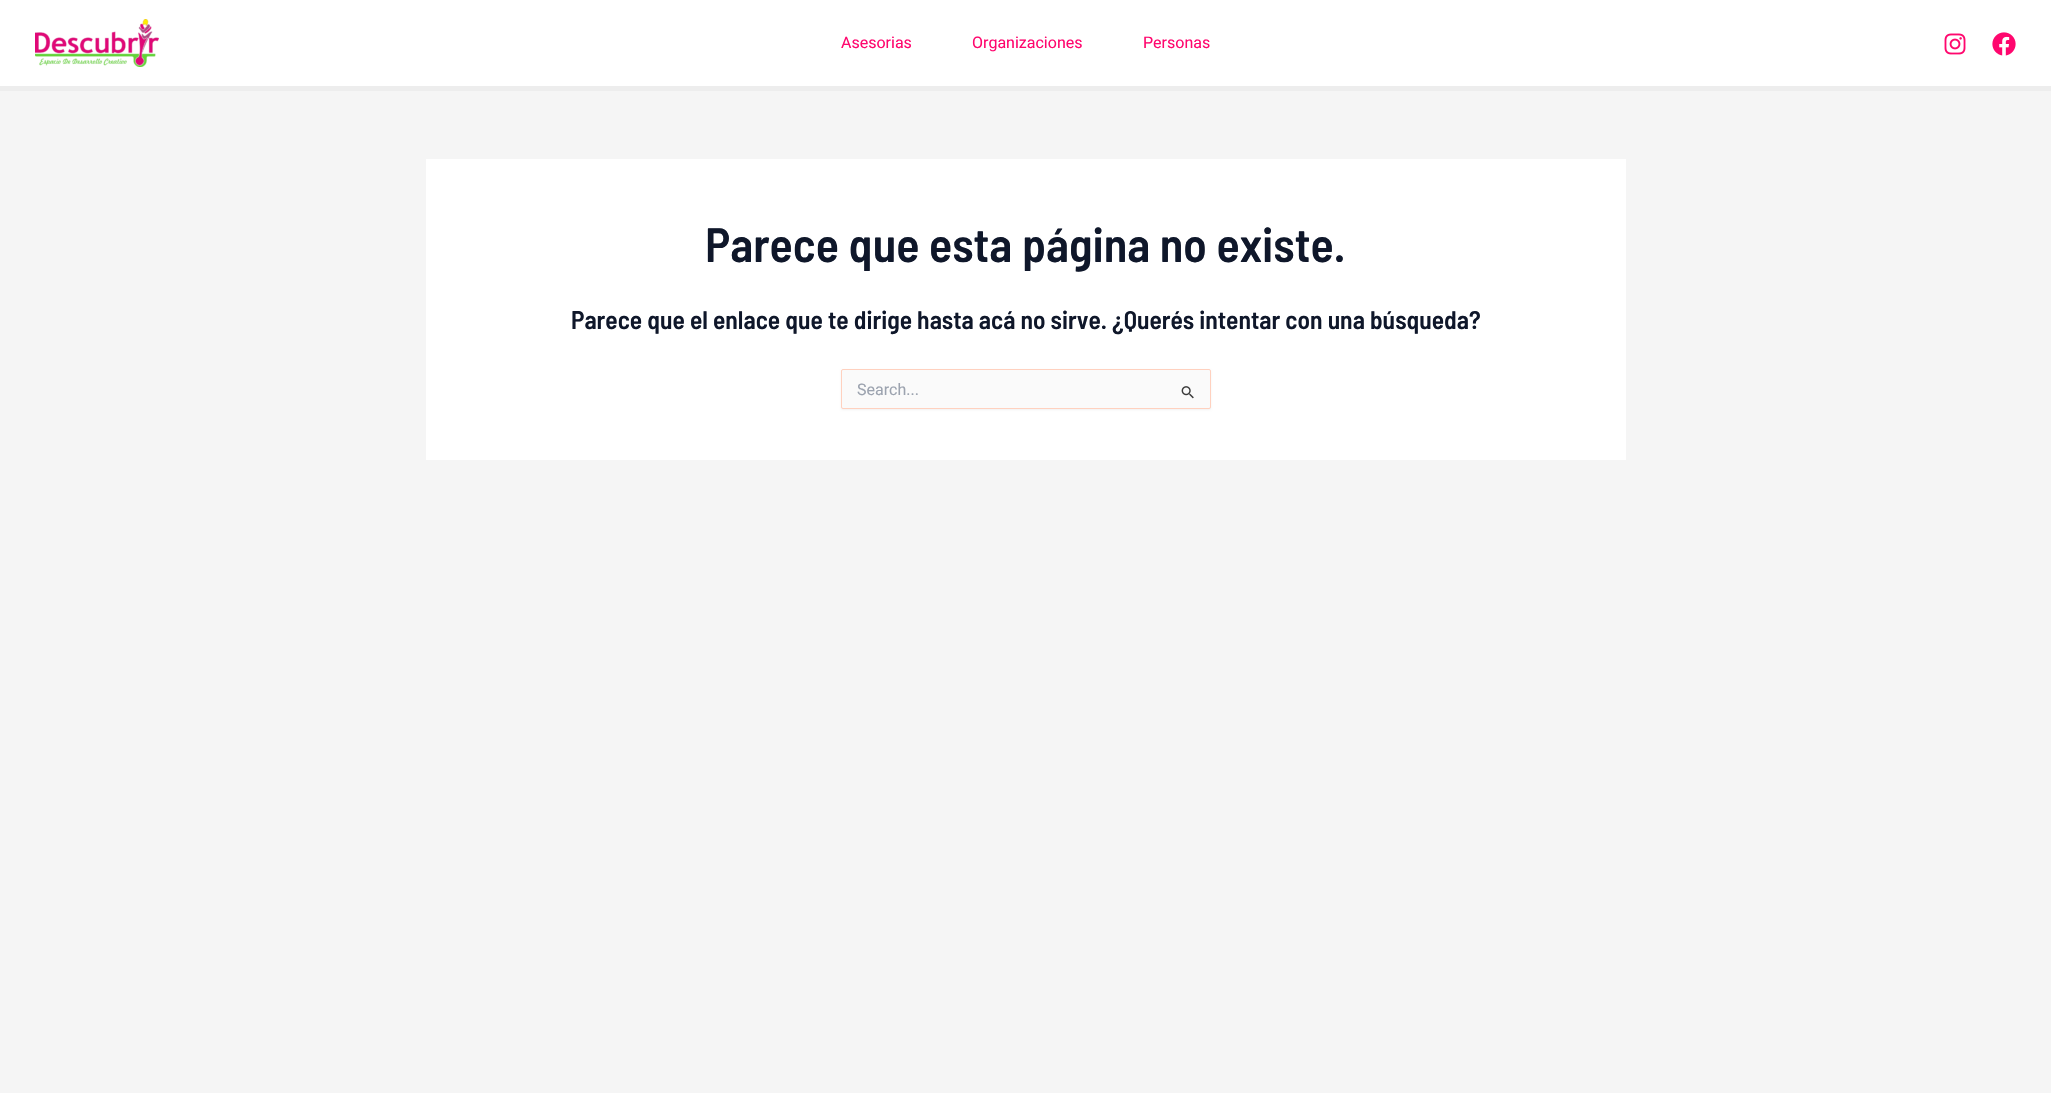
static SkFont makeFont(const char* family, int weight, float size, bool italic = false) {
  SkFontStyle style(weight, SkFontStyle::kNormal_Width,
    italic ? SkFontStyle::kItalic_Slant : SkFontStyle::kUpright_Slant);
  SkFont result(fontMgr->matchFamilyStyle(family, style), size);
  result.setSubpixel(true);
  return result;
}

static void text(SkCanvas* c, const char* s, float x, float y, const SkFont& font, SkColor color) {
  SkPaint ink(SkColor4f::FromColor(color));
  ink.setAntiAlias(true);
  c->drawString(s, x, y, font, ink);
}

static void box(SkCanvas* c, float l, float t, float r, float b, SkColor color) {
  SkPaint ink(SkColor4f::FromColor(color));
  ink.setAntiAlias(true);
  c->drawRect(SkRect::MakeLTRB(l, t, r, b), ink);
}

static void picture(SkCanvas* c, const char* path, float l, float t, float r, float b) {
  auto image = SkImages::DeferredFromEncodedData(SkData::MakeFromFileName(path));
  c->drawImageRect(image, SkRect::MakeLTRB(l, t, r, b), SkSamplingOptions());
}

void draw(SkCanvas* c) {
  SkPaint paint;
  paint.setAntiAlias(true);
  c->clear(0xfff5f5f5);
  box(c, 0, 0, 2051, 86, 0xffffffff);
  box(c, 0, 86, 2051, 91, 0xffededed);
  picture(c, "img_01.png", 35, 19, 159, 67);
  SkFont face1 = makeFont("Roboto", 400, 16);
  text(c, "Asesorias", 841, 48, face1, 0xffff076e);
  text(c, "Organizaciones", 972, 48, face1, 0xffff076e);
  text(c, "Personas", 1143, 48, face1, 0xffff076e);
  picture(c, "img_02.png", 1944, 33, 1966, 55);
  picture(c, "img_03.png", 1992, 32, 2016, 56);
  box(c, 426, 159, 1626, 460, 0xffffffff);
  SkFont face2 = makeFont("Barlow Semi Condensed", 600, 48);
  text(c, "Parece que esta página no existe.", 705, 262, face2, 0xff0f172a);
  SkFont face3 = makeFont("Barlow Semi Condensed", 600, 25.5f);
  text(c, "Parece que el enlace que te dirige hasta acá no sirve. ¿Querés intentar con una búsqueda?", 571, 329, face3, 0xff0f172a);
  paint.setColor(0x0d000000);
  paint.setMaskFilter(SkMaskFilter::MakeBlur(kNormal_SkBlurStyle, 1));
  c->drawRoundRect(SkRect::MakeLTRB(841, 370, 1211, 410), 2, 2, paint);
  paint.setMaskFilter(nullptr);
  paint.setColor(0xfffafafa);
  c->drawRoundRect(SkRect::MakeLTRB(841.5f, 369.5f, 1210.5f, 408.5f), 1.5f, 1.5f, paint);
  paint.setStyle(SkPaint::kStroke_Style);
  paint.setStrokeWidth(1);
  paint.setColor(0xffffd1bf);
  c->drawRoundRect(SkRect::MakeLTRB(841.5f, 369.5f, 1210.5f, 408.5f), 1.5f, 1.5f, paint);
  text(c, "Search...", 857, 395, face1, 0xff9ca3af);
  picture(c, "img_04.png", 1181, 386, 1194, 399);
}
